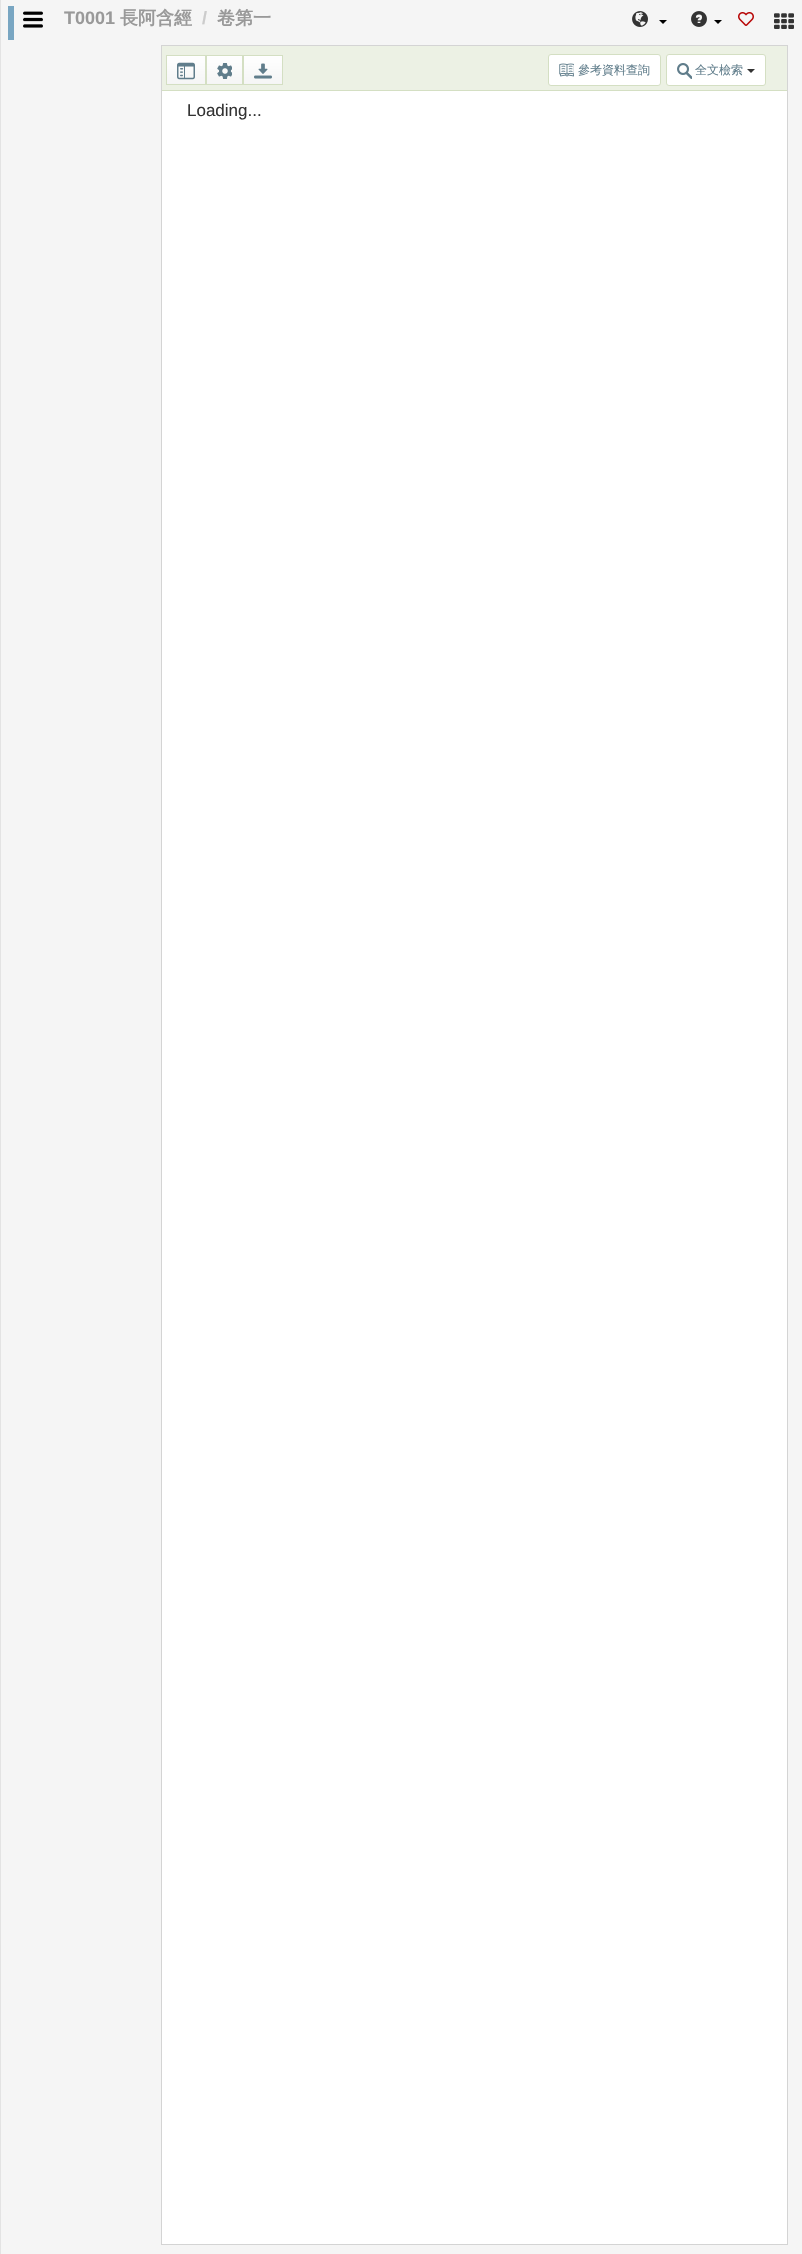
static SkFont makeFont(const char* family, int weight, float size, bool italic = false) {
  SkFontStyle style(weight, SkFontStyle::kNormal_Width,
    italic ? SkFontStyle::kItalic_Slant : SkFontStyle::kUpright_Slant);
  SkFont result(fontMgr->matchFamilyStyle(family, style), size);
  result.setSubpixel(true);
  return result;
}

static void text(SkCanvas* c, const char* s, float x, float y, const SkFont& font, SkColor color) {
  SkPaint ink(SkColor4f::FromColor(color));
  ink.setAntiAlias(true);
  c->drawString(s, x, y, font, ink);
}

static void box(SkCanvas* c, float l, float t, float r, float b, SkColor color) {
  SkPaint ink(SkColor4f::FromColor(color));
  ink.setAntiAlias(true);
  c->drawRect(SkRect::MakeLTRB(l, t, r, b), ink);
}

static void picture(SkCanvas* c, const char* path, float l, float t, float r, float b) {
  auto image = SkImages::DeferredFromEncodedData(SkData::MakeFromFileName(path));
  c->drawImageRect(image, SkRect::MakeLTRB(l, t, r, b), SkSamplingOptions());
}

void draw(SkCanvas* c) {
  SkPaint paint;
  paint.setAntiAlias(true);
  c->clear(0xfff5f5f5);
  box(c, 0, 0, 1, 2254, 0xffe3e3e3);
  box(c, 8, 6, 14, 40, 0xff79a6c2);
  picture(c, "img_01.png", 23, 11, 43, 28);
  SkFont face1 = makeFont("Liberation Sans", 700, 18);
  text(c, "T0001", 64, 24, face1, 0xff999999);
  SkFont face2 = makeFont("WenQuanYi Zen Hei", 700, 18);
  text(c, "長阿含經", 120, 24, face2, 0xff999999);
  text(c, "/", 202, 24, face1, 0xffcccccc);
  text(c, "卷第一", 217, 24, face2, 0xff999999);
  picture(c, "img_02.png", 632, 11, 648, 27);
  paint.setColor(0xff000000);
  c->drawPath(SkPathBuilder().moveTo(659, 20).lineTo(667, 20).lineTo(663, 24).close().detach(), paint);
  picture(c, "img_03.png", 691, 11, 707, 27);
  c->drawPath(SkPathBuilder().moveTo(714, 20).lineTo(722, 20).lineTo(718, 24).close().detach(), paint);
  picture(c, "img_04.png", 738, 12, 754, 26);
  picture(c, "img_05.png", 774, 13, 794, 29);
  box(c, 162, 91, 787, 2244, 0xffffffff);
  paint.setStyle(SkPaint::kStroke_Style);
  paint.setStrokeWidth(1);
  paint.setColor(0xffd4d4d4);
  c->drawRect(SkRect::MakeLTRB(161.5f, 45.5f, 787.5f, 2244.5f), paint);
  box(c, 162, 46, 787, 90, 0xffecf1e4);
  box(c, 162, 90, 787, 91, 0xffd4dfc3);
  paint.setStyle(SkPaint::kFill_Style);
  {
    const SkColor colors[] = {0xffffffff, 0xfff5f5f5};
    const float stops[] = {0, 1};
    const SkPoint ends[] = {{186, 56}, {186, 84}};
    paint.setShader(SkGradientShader::MakeLinear(ends, colors, stops, 2, SkTileMode::kClamp));
    paint.setAlpha(255);
  }
  c->drawRect(SkRect::MakeLTRB(167, 56, 205, 84), paint);
  paint.setStyle(SkPaint::kStroke_Style);
  paint.setShader(nullptr);
  paint.setColor(0xffd4dfc3);
  c->drawRect(SkRect::MakeLTRB(166.5f, 55.5f, 205.5f, 84.5f), paint);
  picture(c, "img_06.png", 177, 62, 195, 80);
  paint.setStyle(SkPaint::kFill_Style);
  {
    const SkColor colors[] = {0xffffffff, 0xfff5f5f5};
    const float stops[] = {0, 1};
    const SkPoint ends[] = {{225, 56}, {225, 84}};
    paint.setShader(SkGradientShader::MakeLinear(ends, colors, stops, 2, SkTileMode::kClamp));
    paint.setAlpha(255);
  }
  c->drawRect(SkRect::MakeLTRB(207, 56, 242, 84), paint);
  paint.setStyle(SkPaint::kStroke_Style);
  paint.setShader(nullptr);
  paint.setColor(0xffd4dfc3);
  c->drawRect(SkRect::MakeLTRB(206.5f, 55.5f, 242.5f, 84.5f), paint);
  picture(c, "img_07.png", 217, 63, 232, 79);
  paint.setStyle(SkPaint::kFill_Style);
  {
    const SkColor colors[] = {0xffffffff, 0xfff5f5f5};
    const float stops[] = {0, 1};
    const SkPoint ends[] = {{263, 56}, {263, 84}};
    paint.setShader(SkGradientShader::MakeLinear(ends, colors, stops, 2, SkTileMode::kClamp));
    paint.setAlpha(255);
  }
  c->drawRect(SkRect::MakeLTRB(244, 56, 282, 84), paint);
  paint.setStyle(SkPaint::kStroke_Style);
  paint.setShader(nullptr);
  paint.setColor(0xffd4dfc3);
  c->drawRect(SkRect::MakeLTRB(243.5f, 55.5f, 282.5f, 84.5f), paint);
  picture(c, "img_08.png", 254, 63, 272, 79);
  paint.setStyle(SkPaint::kFill_Style);
  paint.setColor(0xffffffff);
  c->drawRoundRect(SkRect::MakeLTRB(548.5f, 54.5f, 660.5f, 85.5f), 2.5f, 2.5f, paint);
  paint.setStyle(SkPaint::kStroke_Style);
  paint.setColor(0xffd4dfc3);
  c->drawRoundRect(SkRect::MakeLTRB(548.5f, 54.5f, 660.5f, 85.5f), 2.5f, 2.5f, paint);
  picture(c, "img_09.png", 559, 63, 574, 77);
  SkFont face3 = makeFont("WenQuanYi Zen Hei", 500, 12);
  text(c, "參考資料查詢", 578, 74, face3, 0xff607d8b);
  paint.setStyle(SkPaint::kFill_Style);
  paint.setColor(0xffffffff);
  c->drawRoundRect(SkRect::MakeLTRB(666.5f, 54.5f, 765.5f, 85.5f), 2.5f, 2.5f, paint);
  paint.setStyle(SkPaint::kStroke_Style);
  paint.setColor(0xffd4dfc3);
  c->drawRoundRect(SkRect::MakeLTRB(666.5f, 54.5f, 765.5f, 85.5f), 2.5f, 2.5f, paint);
  picture(c, "img_10.png", 677, 63, 692, 79);
  text(c, "全文檢索", 695, 74, face3, 0xff607d8b);
  paint.setStyle(SkPaint::kFill_Style);
  paint.setColor(0xff333333);
  c->drawPath(SkPathBuilder().moveTo(747, 69).lineTo(755, 69).lineTo(751, 73).close().detach(), paint);
  SkFont face4 = makeFont("Liberation Sans", 400, 17);
  text(c, "Loading...", 187, 116, face4, 0xff333333);
}
